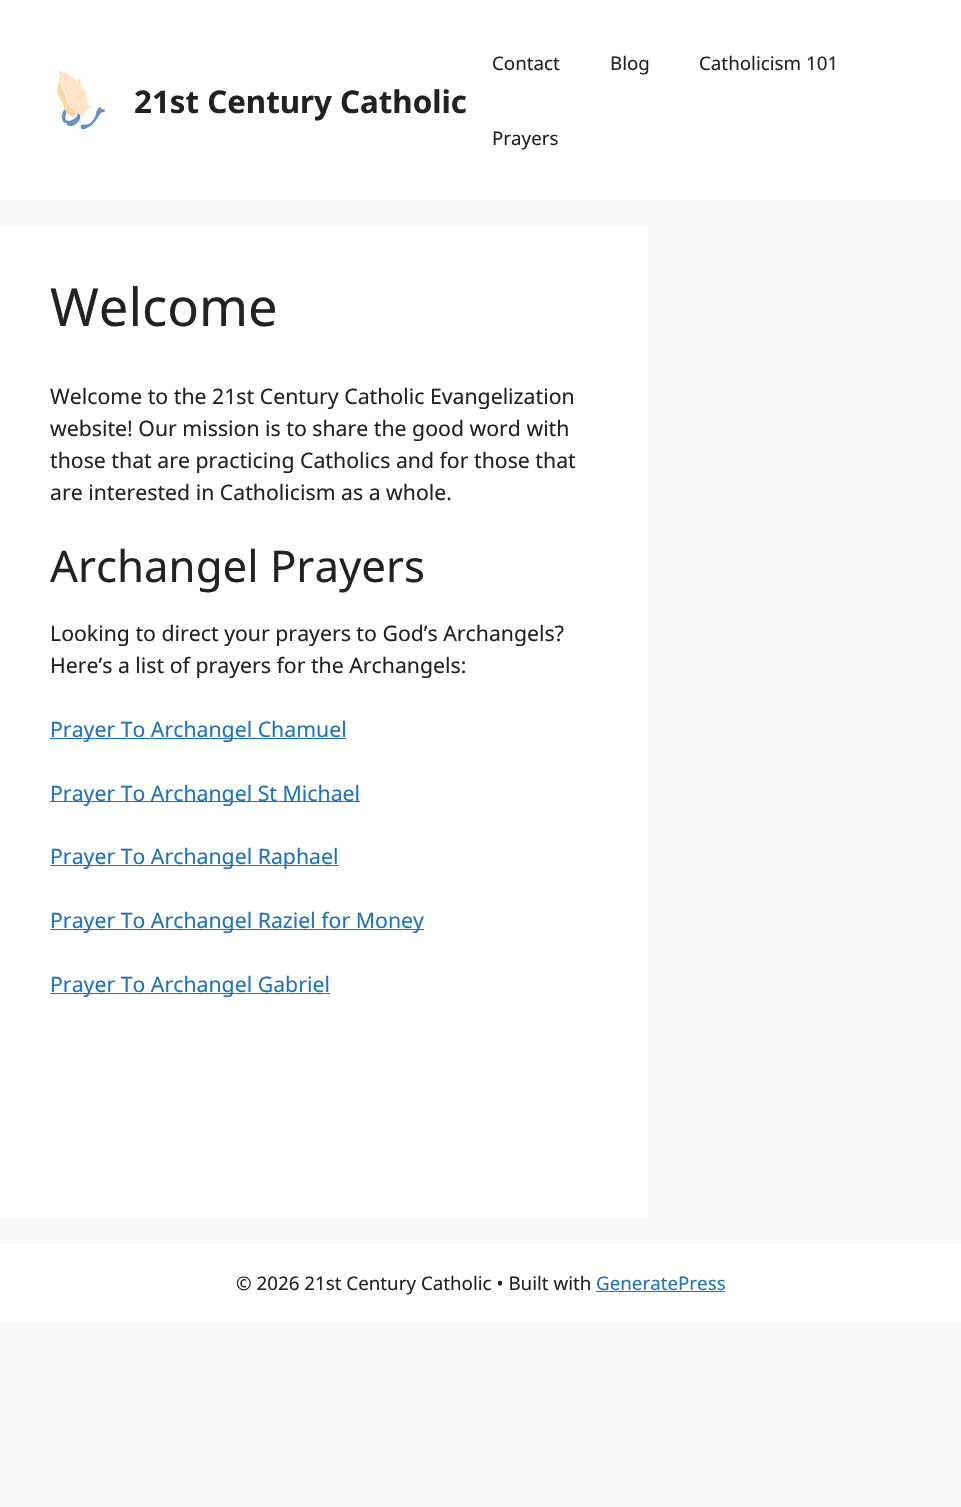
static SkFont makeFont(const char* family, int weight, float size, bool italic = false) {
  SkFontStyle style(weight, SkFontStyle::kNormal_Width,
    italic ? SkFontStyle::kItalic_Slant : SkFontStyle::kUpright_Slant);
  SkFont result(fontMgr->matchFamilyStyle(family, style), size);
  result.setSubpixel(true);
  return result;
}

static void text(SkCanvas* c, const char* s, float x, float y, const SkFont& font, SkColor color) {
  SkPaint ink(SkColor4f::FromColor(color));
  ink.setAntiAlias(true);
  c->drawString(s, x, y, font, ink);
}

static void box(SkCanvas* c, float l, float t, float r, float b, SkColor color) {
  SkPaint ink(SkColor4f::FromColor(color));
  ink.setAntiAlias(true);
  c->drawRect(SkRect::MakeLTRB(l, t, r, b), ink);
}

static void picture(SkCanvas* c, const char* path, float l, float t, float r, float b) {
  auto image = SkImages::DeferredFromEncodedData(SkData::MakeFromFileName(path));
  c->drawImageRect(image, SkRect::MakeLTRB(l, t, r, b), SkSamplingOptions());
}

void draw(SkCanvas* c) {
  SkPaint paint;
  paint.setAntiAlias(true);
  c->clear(0xfff7f8f9);
  box(c, 0, 0, 961, 200, 0xffffffff);
  picture(c, "img_01.png", 57, 70, 106, 130);
  SkFont face1 = makeFont("Noto Sans", 700, 31.25f);
  text(c, "21st Century Catholic", 134, 113, face1, 0xff222222);
  SkFont face2 = makeFont("Noto Sans", 400, 18.75f);
  text(c, "Contact", 492, 70, face2, 0xff222222);
  text(c, "Blog", 610, 70, face2, 0xff222222);
  text(c, "Catholicism 101", 699, 70, face2, 0xff222222);
  text(c, "Prayers", 492, 145, face2, 0xff222222);
  box(c, 0, 225, 648, 1219, 0xffffffff);
  SkFont face3 = makeFont("Noto Sans", 400, 52.5f);
  text(c, "Welcome", 50, 326, face3, 0xff222222);
  SkFont face4 = makeFont("Noto Sans", 400, 21.25f);
  text(c, "Welcome to the 21st Century Catholic Evangelization", 50, 404, face4, 0xff222222);
  text(c, "website! Our mission is to share the good word with", 50, 436, face4, 0xff222222);
  text(c, "those that are practicing Catholics and for those that", 50, 468, face4, 0xff222222);
  text(c, "are interested in Catholicism as a whole.", 50, 500, face4, 0xff222222);
  SkFont face5 = makeFont("Noto Sans", 400, 43.75f);
  text(c, "Archangel Prayers", 50, 582, face5, 0xff222222);
  text(c, "Looking to direct your prayers to God’s Archangels?", 50, 641, face4, 0xff222222);
  text(c, "Here’s a list of prayers for the Archangels:", 50, 673, face4, 0xff222222);
  box(c, 50, 738, 346, 739, 0xff1e73be);
  text(c, "Prayer To Archangel Chamuel", 50, 737, face4, 0xff1e73be);
  box(c, 50, 801, 360, 802, 0xff1e73be);
  text(c, "Prayer To Archangel St Michael", 50, 801, face4, 0xff1e73be);
  box(c, 50, 865, 339, 866, 0xff1e73be);
  text(c, "Prayer To Archangel Raphael", 50, 864, face4, 0xff1e73be);
  box(c, 50, 929, 424, 930, 0xff1e73be);
  text(c, "Prayer To Archangel Raziel for Money", 50, 928, face4, 0xff1e73be);
  box(c, 50, 993, 330, 994, 0xff1e73be);
  text(c, "Prayer To Archangel Gabriel", 50, 992, face4, 0xff1e73be);
  box(c, 0, 1244, 961, 1323, 0xffffffff);
  text(c, "© 2026 21st Century Catholic • Built with", 236, 1290, face2, 0xff222222);
  text(c, "GeneratePress", 596, 1290, face2, 0xff1e73be);
  box(c, 596, 1291, 725, 1292, 0xff1e73be);
}
